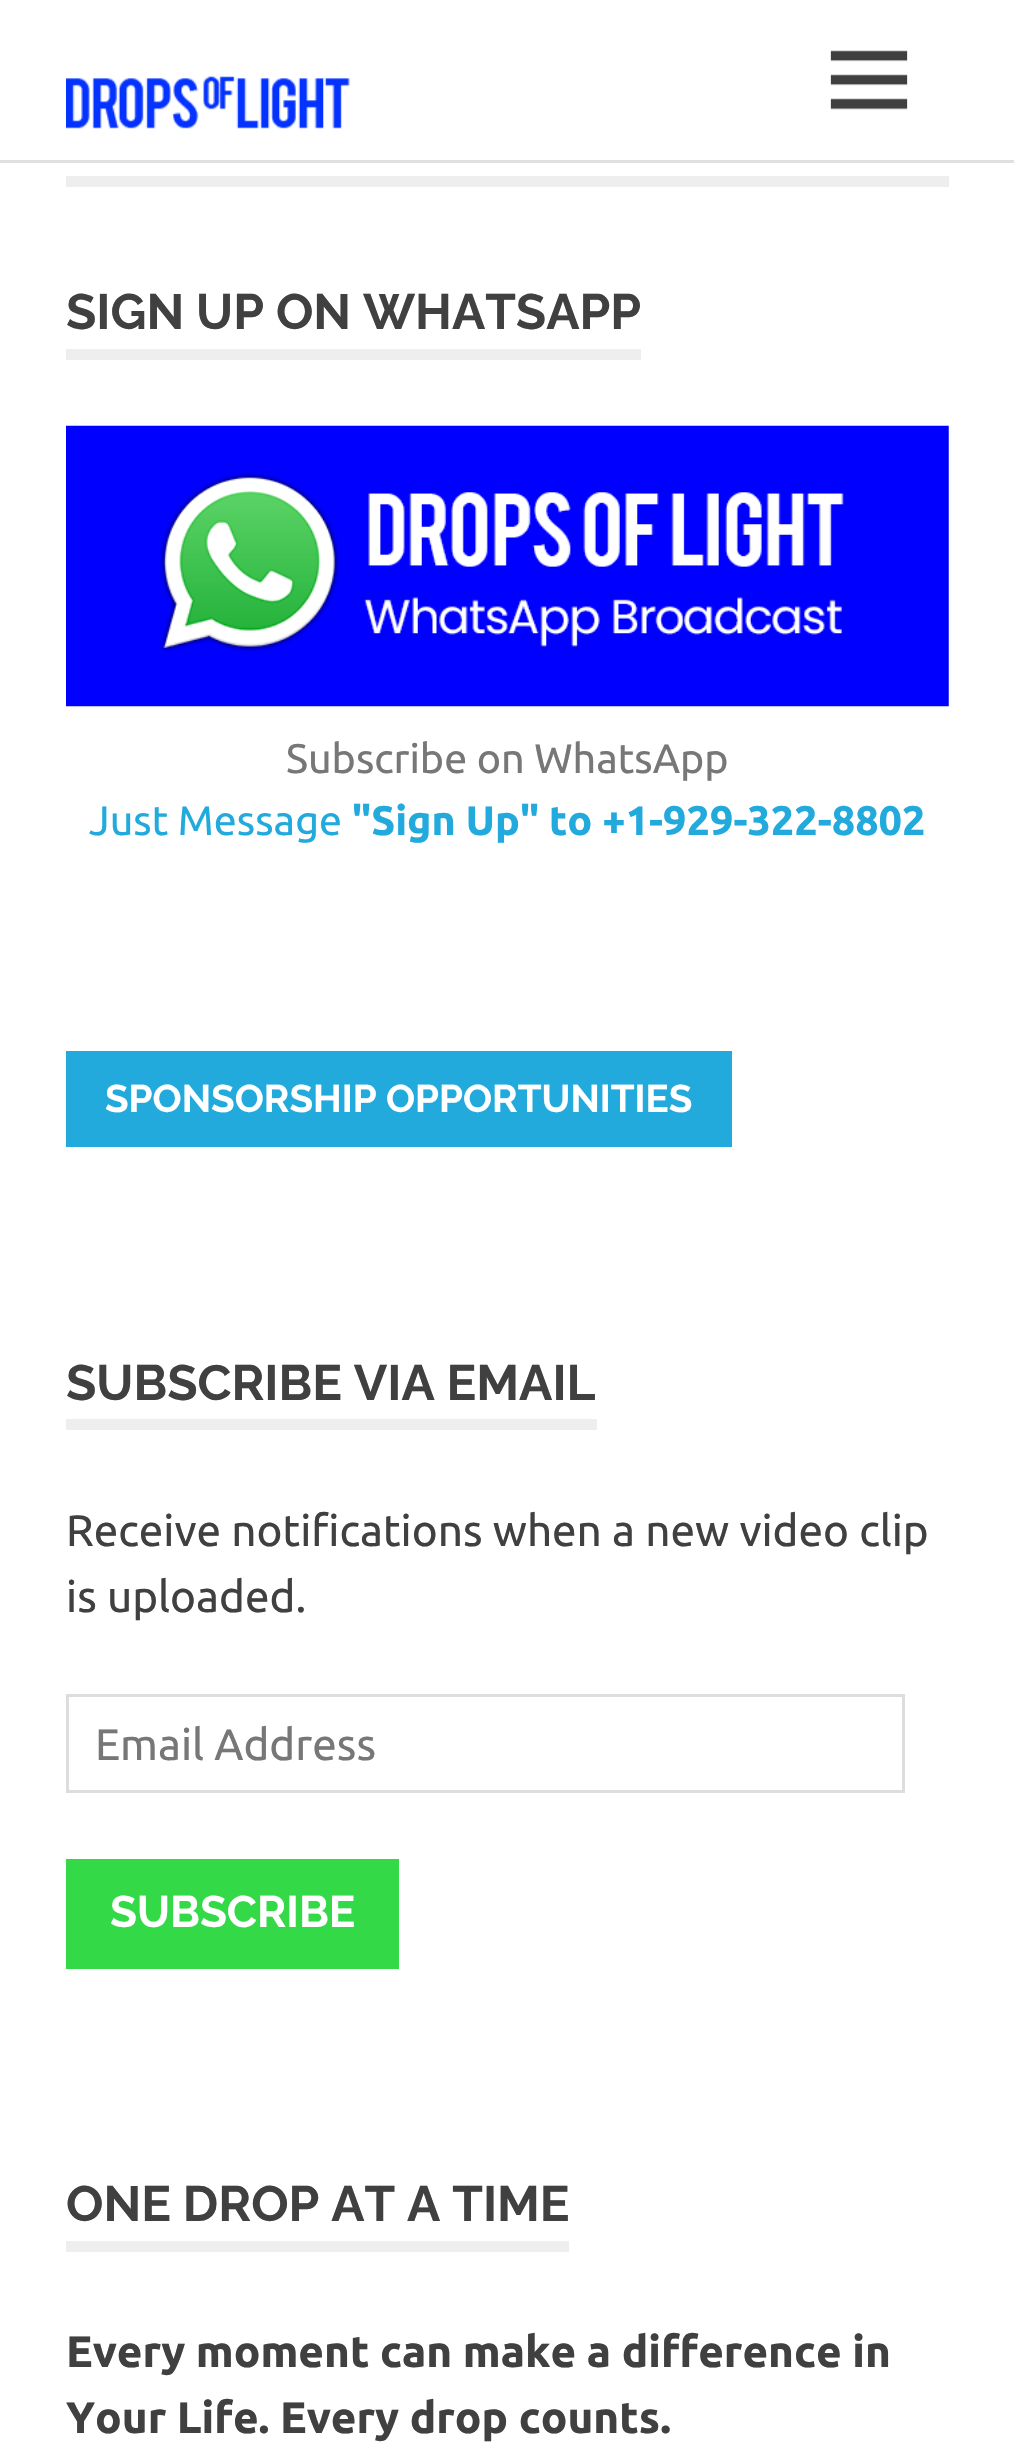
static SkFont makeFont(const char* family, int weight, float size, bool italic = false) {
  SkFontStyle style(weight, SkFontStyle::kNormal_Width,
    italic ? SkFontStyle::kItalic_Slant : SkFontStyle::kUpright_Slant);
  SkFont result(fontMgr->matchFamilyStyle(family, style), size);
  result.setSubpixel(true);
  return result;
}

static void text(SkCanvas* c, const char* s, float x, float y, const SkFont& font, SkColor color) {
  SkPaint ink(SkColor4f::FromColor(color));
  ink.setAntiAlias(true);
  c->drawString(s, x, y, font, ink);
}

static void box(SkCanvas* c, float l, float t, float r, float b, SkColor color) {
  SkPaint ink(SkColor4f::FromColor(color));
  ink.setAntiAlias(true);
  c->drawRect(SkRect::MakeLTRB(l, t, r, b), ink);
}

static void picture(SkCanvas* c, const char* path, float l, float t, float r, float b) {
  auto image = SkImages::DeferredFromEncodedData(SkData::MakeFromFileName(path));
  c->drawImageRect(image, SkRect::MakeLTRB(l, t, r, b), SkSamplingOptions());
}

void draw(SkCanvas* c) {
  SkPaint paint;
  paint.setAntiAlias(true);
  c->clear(0xffffffff);
  box(c, 0, 160, 1014, 163, 0xffe0e0e0);
  picture(c, "img_01.png", 66, 76, 350, 129);
  picture(c, "img_02.png", 830, 50, 908, 110);
  box(c, 66, 176, 949, 187, 0xffeeeeee);
  box(c, 66, 349, 641, 360, 0xffeeeeee);
  SkFont face1 = makeFont("Raleway", 100, 49.5f);
  text(c, "SIGN UP ON WHATSAPP", 66, 329, face1, 0xff404040);
  picture(c, "img_03.png", 66, 425, 949, 707);
  SkFont face2 = makeFont("Ubuntu", 400, 41.25f);
  text(c, "Subscribe on WhatsApp", 286, 773, face2, 0xff777777);
  text(c, "Just Message", 89, 835, face2, 0xff22aadd);
  SkFont face3 = makeFont("Ubuntu", 700, 41.25f);
  text(c, "\"Sign Up\" to +1-929-322-8802", 352, 835, face3, 0xff22aadd);
  box(c, 66, 1051, 732, 1147, 0xff22aadd);
  SkFont face4 = makeFont("Raleway", 100, 38.5f);
  text(c, "SPONSORSHIP OPPORTUNITIES", 105, 1112, face4, 0xffffffff);
  box(c, 66, 1419, 597, 1430, 0xffeeeeee);
  text(c, "SUBSCRIBE VIA EMAIL", 66, 1400, face1, 0xff404040);
  SkFont face5 = makeFont("Ubuntu", 400, 44);
  text(c, "Receive notifications when a new video clip", 66, 1546, face5, 0xff404040);
  text(c, "is uploaded.", 66, 1612, face5, 0xff404040);
  paint.setStyle(SkPaint::kStroke_Style);
  paint.setStrokeWidth(3);
  paint.setColor(0xffdddddd);
  c->drawRect(SkRect::MakeLTRB(67.5f, 1695.5f, 903.5f, 1791.5f), paint);
  text(c, "Email Address", 95, 1760, face5, 0xff777777);
  box(c, 66, 1859, 399, 1969, 0xff34d947);
  SkFont face6 = makeFont("Raleway", 100, 44);
  text(c, "SUBSCRIBE", 110, 1927, face6, 0xffffffff);
  box(c, 66, 2241, 569, 2252, 0xffeeeeee);
  text(c, "ONE DROP AT A TIME", 66, 2221, face1, 0xff404040);
  SkFont face7 = makeFont("Ubuntu", 700, 44);
  text(c, "Every moment can make a difference in", 66, 2367, face7, 0xff404040);
  text(c, "Your Life. Every drop counts.", 66, 2433, face7, 0xff404040);
}
